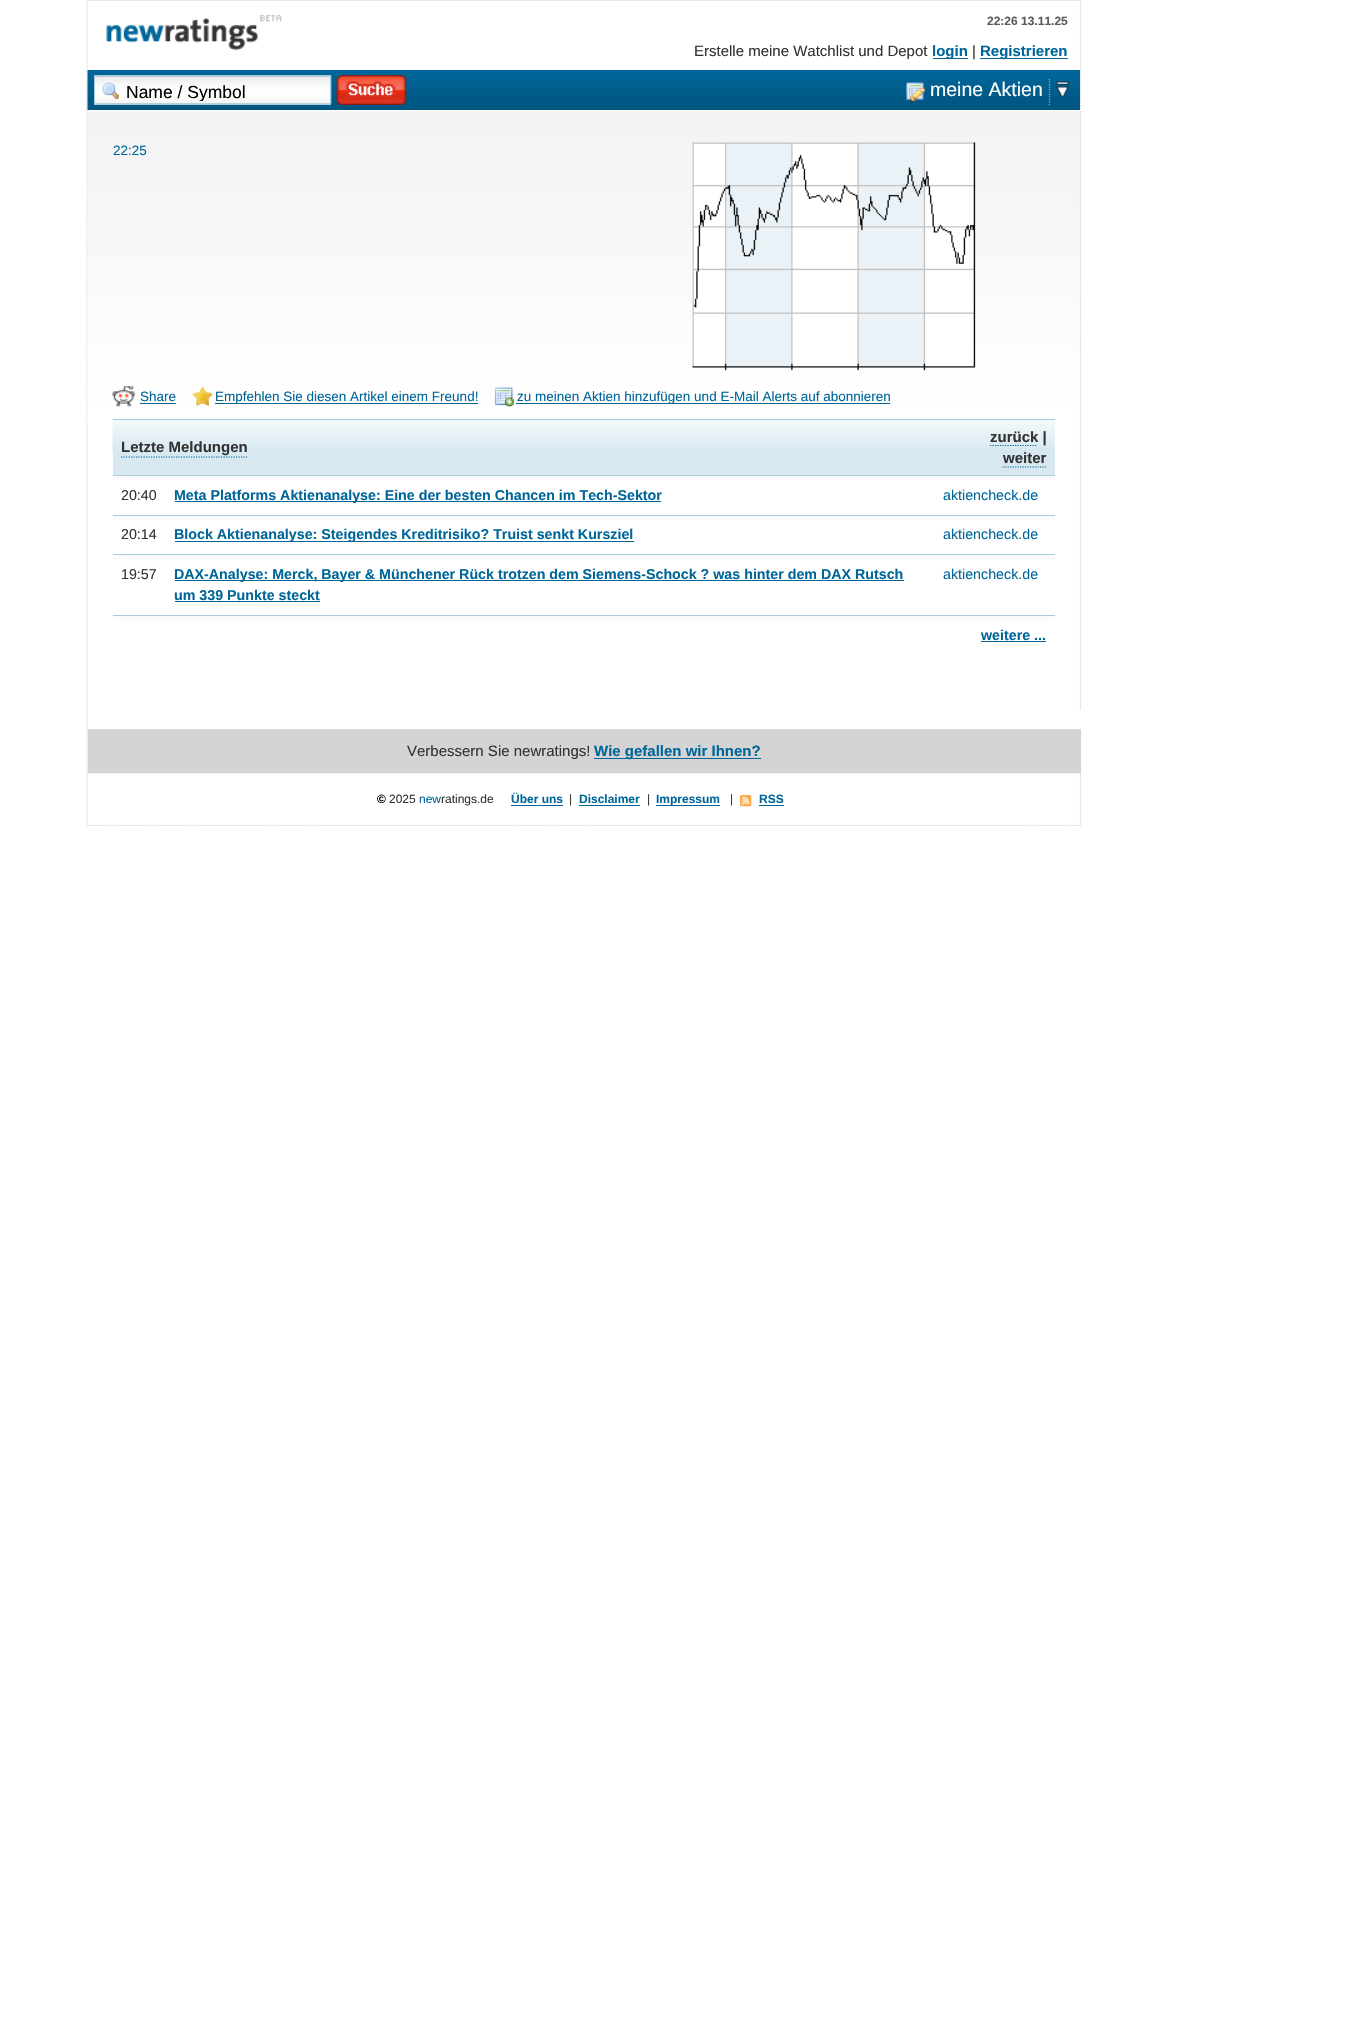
static SkFont makeFont(const char* family, int weight, float size, bool italic = false) {
  SkFontStyle style(weight, SkFontStyle::kNormal_Width,
    italic ? SkFontStyle::kItalic_Slant : SkFontStyle::kUpright_Slant);
  SkFont result(fontMgr->matchFamilyStyle(family, style), size);
  result.setSubpixel(true);
  return result;
}

static void text(SkCanvas* c, const char* s, float x, float y, const SkFont& font, SkColor color) {
  SkPaint ink(SkColor4f::FromColor(color));
  ink.setAntiAlias(true);
  c->drawString(s, x, y, font, ink);
}

static void box(SkCanvas* c, float l, float t, float r, float b, SkColor color) {
  SkPaint ink(SkColor4f::FromColor(color));
  ink.setAntiAlias(true);
  c->drawRect(SkRect::MakeLTRB(l, t, r, b), ink);
}

static void picture(SkCanvas* c, const char* path, float l, float t, float r, float b) {
  auto image = SkImages::DeferredFromEncodedData(SkData::MakeFromFileName(path));
  c->drawImageRect(image, SkRect::MakeLTRB(l, t, r, b), SkSamplingOptions());
}

void draw(SkCanvas* c) {
  SkPaint paint;
  paint.setAntiAlias(true);
  c->clear(0xffffffff);
  paint.setStyle(SkPaint::kStroke_Style);
  paint.setStrokeWidth(1.2f);
  paint.setColor(0xffd4d4d4);
  paint.setPathEffect(SkDashPathEffect::Make({{1.25f, 1.25f}}, 0));
  c->drawPath(SkPathBuilder().moveTo(87, 0).lineTo(87, 826).detach(), paint);
  paint.setPathEffect(nullptr);
  paint.setPathEffect(SkDashPathEffect::Make({{1.25f, 1.25f}}, 0));
  c->drawPath(SkPathBuilder().moveTo(87.5f, 0.5f).lineTo(1081, 0.5f).detach(), paint);
  paint.setPathEffect(nullptr);
  paint.setPathEffect(SkDashPathEffect::Make({{1.25f, 1.25f}}, 0));
  c->drawPath(SkPathBuilder().moveTo(1080.5f, 0).lineTo(1080.5f, 110).detach(), paint);
  paint.setPathEffect(nullptr);
  picture(c, "img_01.png", 106, 15, 282, 51);
  SkFont face1 = makeFont("Liberation Sans", 700, 12);
  text(c, "22:26 13.11.25", 987, 25, face1, 0xff5b5b5b);
  SkFont face2 = makeFont("Liberation Sans", 400, 15);
  text(c, "Erstelle meine Watchlist und Depot", 694, 56, face2, 0xff333333);
  box(c, 933, 58, 968, 59, 0xff006699);
  SkFont face3 = makeFont("Liberation Sans", 700, 15);
  text(c, "login", 932, 56, face3, 0xff006699);
  text(c, "|", 972, 56, face2, 0xff333333);
  box(c, 980, 58, 1068, 59, 0xff006699);
  text(c, "Registrieren", 980, 56, face3, 0xff006699);
  picture(c, "img_02.png", 87, 70, 1080, 110);
  picture(c, "img_03.png", 95, 76, 332, 104);
  paint.setStrokeWidth(1);
  paint.setColor(0xffa8cde1);
  c->drawRect(SkRect::MakeLTRB(94.5f, 75.5f, 330.5f, 104.5f), paint);
  c->save();
  c->clipRect(SkRect::MakeLTRB(126, 81, 326, 101));
  SkFont face4 = makeFont("Liberation Sans", 400, 17.5f);
  text(c, "Name / Symbol", 126, 98, face4, 0xff000000);
  c->restore();
  picture(c, "img_04.png", 336, 75, 407, 105);
  picture(c, "img_05.png", 906, 82, 925, 102);
  SkFont face5 = makeFont("Liberation Sans", 400, 19.5f);
  text(c, "meine Aktien", 930, 96, face5, 0xffffffff);
  paint.setStrokeWidth(1.2f);
  paint.setColor(0xff99b0bb);
  paint.setPathEffect(SkDashPathEffect::Make({{1.25f, 1.25f}}, 0));
  c->drawPath(SkPathBuilder().moveTo(1049.5f, 79).lineTo(1049.5f, 105).detach(), paint);
  paint.setPathEffect(nullptr);
  picture(c, "img_06.png", 1056, 81, 1069, 98);
  picture(c, "img_07.png", 87, 111, 1081, 424);
  paint.setColor(0xffd4d4d4);
  paint.setPathEffect(SkDashPathEffect::Make({{1.25f, 1.25f}}, 0));
  c->drawPath(SkPathBuilder().moveTo(1080.5f, 111).lineTo(1080.5f, 711).detach(), paint);
  paint.setPathEffect(nullptr);
  SkFont face6 = makeFont("Liberation Sans", 400, 13.5f);
  text(c, "22:25", 113, 155, face6, 0xff006699);
  picture(c, "img_08.png", 692, 142, 976, 371);
  picture(c, "img_09.png", 112, 386, 135, 407);
  text(c, "Share", 140, 401, face6, 0xff006699);
  box(c, 140, 403, 176, 404, 0xff006699);
  picture(c, "img_10.png", 192, 386, 213, 407);
  box(c, 215, 403, 478, 404, 0xff006699);
  text(c, "Empfehlen Sie diesen Artikel einem Freund!", 215, 401, face6, 0xff006699);
  picture(c, "img_11.png", 494, 387, 514, 407);
  box(c, 516, 403, 890, 404, 0xff006699);
  text(c, "zu meinen Aktien hinzufügen und E-Mail Alerts auf abonnieren", 517, 401, face6, 0xff006699);
  box(c, 113, 453, 935, 475, 0xffd7e8f1);
  picture(c, "img_12.png", 112, 420, 935, 454);
  box(c, 113, 419, 1055, 420, 0xffa8cde1);
  text(c, "Letzte Meldungen", 121, 452, face3, 0xff333333);
  paint.setColor(0xff006699);
  paint.setPathEffect(SkDashPathEffect::Make({{1.25f, 1.25f}}, 0));
  c->drawPath(SkPathBuilder().moveTo(121, 457).lineTo(247.5f, 457).detach(), paint);
  paint.setPathEffect(nullptr);
  box(c, 935, 448, 1055, 475, 0xffd7e8f1);
  picture(c, "img_13.png", 935, 420, 1055, 448);
  paint.setPathEffect(SkDashPathEffect::Make({{1.25f, 1.25f}}, 0));
  c->drawPath(SkPathBuilder().moveTo(990, 445.5f).lineTo(1037.5f, 445.5f).detach(), paint);
  paint.setPathEffect(nullptr);
  text(c, "zurück |", 990, 442, face3, 0xff333333);
  text(c, "weiter", 1003, 463, face3, 0xff333333);
  paint.setPathEffect(SkDashPathEffect::Make({{1.25f, 1.25f}}, 0));
  c->drawPath(SkPathBuilder().moveTo(1002.5f, 467).lineTo(1046, 467).detach(), paint);
  paint.setPathEffect(nullptr);
  box(c, 113, 476, 166, 480, 0xfffafafa);
  box(c, 113, 475, 1055, 476, 0xffa8cde1);
  SkFont face7 = makeFont("Liberation Sans", 400, 14.25f);
  text(c, "20:40", 121, 500, face7, 0xff333333);
  box(c, 167, 476, 1055, 480, 0xfffafafa);
  box(c, 175, 501, 661, 502, 0xff006699);
  SkFont face8 = makeFont("Liberation Sans", 700, 14.25f);
  text(c, "Meta Platforms Aktienanalyse: Eine der besten Chancen im Tech-Sektor", 174, 500, face8, 0xff006699);
  text(c, "aktiencheck.de", 943, 500, face7, 0xff006699);
  box(c, 113, 516, 166, 520, 0xfffafafa);
  box(c, 113, 515, 1055, 516, 0xffa8cde1);
  text(c, "20:14", 121, 539, face7, 0xff333333);
  box(c, 167, 516, 1055, 520, 0xfffafafa);
  box(c, 175, 541, 634, 542, 0xff006699);
  text(c, "Block Aktienanalyse: Steigendes Kreditrisiko? Truist senkt Kursziel", 174, 539, face8, 0xff006699);
  text(c, "aktiencheck.de", 943, 539, face7, 0xff006699);
  box(c, 113, 555, 1055, 559, 0xfffafafa);
  box(c, 113, 554, 1055, 555, 0xffa8cde1);
  text(c, "19:57", 121, 579, face7, 0xff333333);
  box(c, 175, 580, 904, 581, 0xff006699);
  text(c, "DAX-Analyse: Merck, Bayer & Münchener Rück trotzen dem Siemens-Schock ? was hinter dem DAX Rutsch", 174, 579, face8, 0xff006699);
  text(c, "um 339 Punkte steckt", 174, 600, face8, 0xff006699);
  box(c, 175, 601, 320, 602, 0xff006699);
  text(c, "aktiencheck.de", 943, 579, face7, 0xff006699);
  box(c, 113, 616, 1055, 620, 0xfffafafa);
  box(c, 113, 615, 1055, 616, 0xffa8cde1);
  text(c, "weitere ...", 981, 640, face8, 0xff006699);
  box(c, 981, 641, 1046, 642, 0xff006699);
  box(c, 88, 729, 1081, 773, 0xffd4d4d4);
  paint.setColor(0xffd4d4d4);
  paint.setPathEffect(SkDashPathEffect::Make({{1.25f, 1.25f}}, 0));
  c->drawPath(SkPathBuilder().moveTo(87.5f, 729.5f).lineTo(1081, 729.5f).detach(), paint);
  paint.setPathEffect(nullptr);
  paint.setPathEffect(SkDashPathEffect::Make({{1.25f, 1.25f}}, 0));
  c->drawPath(SkPathBuilder().moveTo(1080.5f, 729).lineTo(1080.5f, 772.5f).detach(), paint);
  paint.setPathEffect(nullptr);
  text(c, "Verbessern Sie newratings!", 407, 756, face2, 0xff333333);
  box(c, 594, 758, 761, 759, 0xff006699);
  text(c, "Wie gefallen wir Ihnen?", 594, 756, face3, 0xff006699);
  paint.setPathEffect(SkDashPathEffect::Make({{1.25f, 1.25f}}, 0));
  c->drawPath(SkPathBuilder().moveTo(87.5f, 773).lineTo(1081, 773).detach(), paint);
  paint.setPathEffect(nullptr);
  paint.setPathEffect(SkDashPathEffect::Make({{1.25f, 1.25f}}, 0));
  c->drawPath(SkPathBuilder().moveTo(1080.5f, 772.5f).lineTo(1080.5f, 826).detach(), paint);
  paint.setPathEffect(nullptr);
  paint.setPathEffect(SkDashPathEffect::Make({{1.25f, 1.25f}}, 0));
  c->drawPath(SkPathBuilder().moveTo(87.5f, 825.5f).lineTo(1081, 825.5f).detach(), paint);
  paint.setPathEffect(nullptr);
  text(c, "©", 377, 803, face1, 0xff000000);
  SkFont face9 = makeFont("Liberation Sans", 400, 12);
  text(c, "2025", 389, 803, face9, 0xff333333);
  text(c, "new", 419, 803, face9, 0xff006699);
  text(c, "ratings.de", 441, 803, face9, 0xff333333);
  text(c, "Über uns", 511, 803, face1, 0xff006699);
  box(c, 511, 805, 563, 806, 0xff006699);
  text(c, "|", 569, 803, face9, 0xff333333);
  text(c, "Disclaimer", 579, 803, face1, 0xff006699);
  box(c, 579, 805, 640, 806, 0xff006699);
  text(c, "|", 647, 803, face9, 0xff333333);
  box(c, 656, 805, 720, 806, 0xff006699);
  text(c, "Impressum", 656, 803, face1, 0xff006699);
  text(c, "|", 730, 803, face9, 0xff333333);
  picture(c, "img_14.png", 740, 795, 752, 807);
  text(c, "RSS", 759, 803, face1, 0xff006699);
  box(c, 759, 805, 784, 806, 0xff006699);
}
